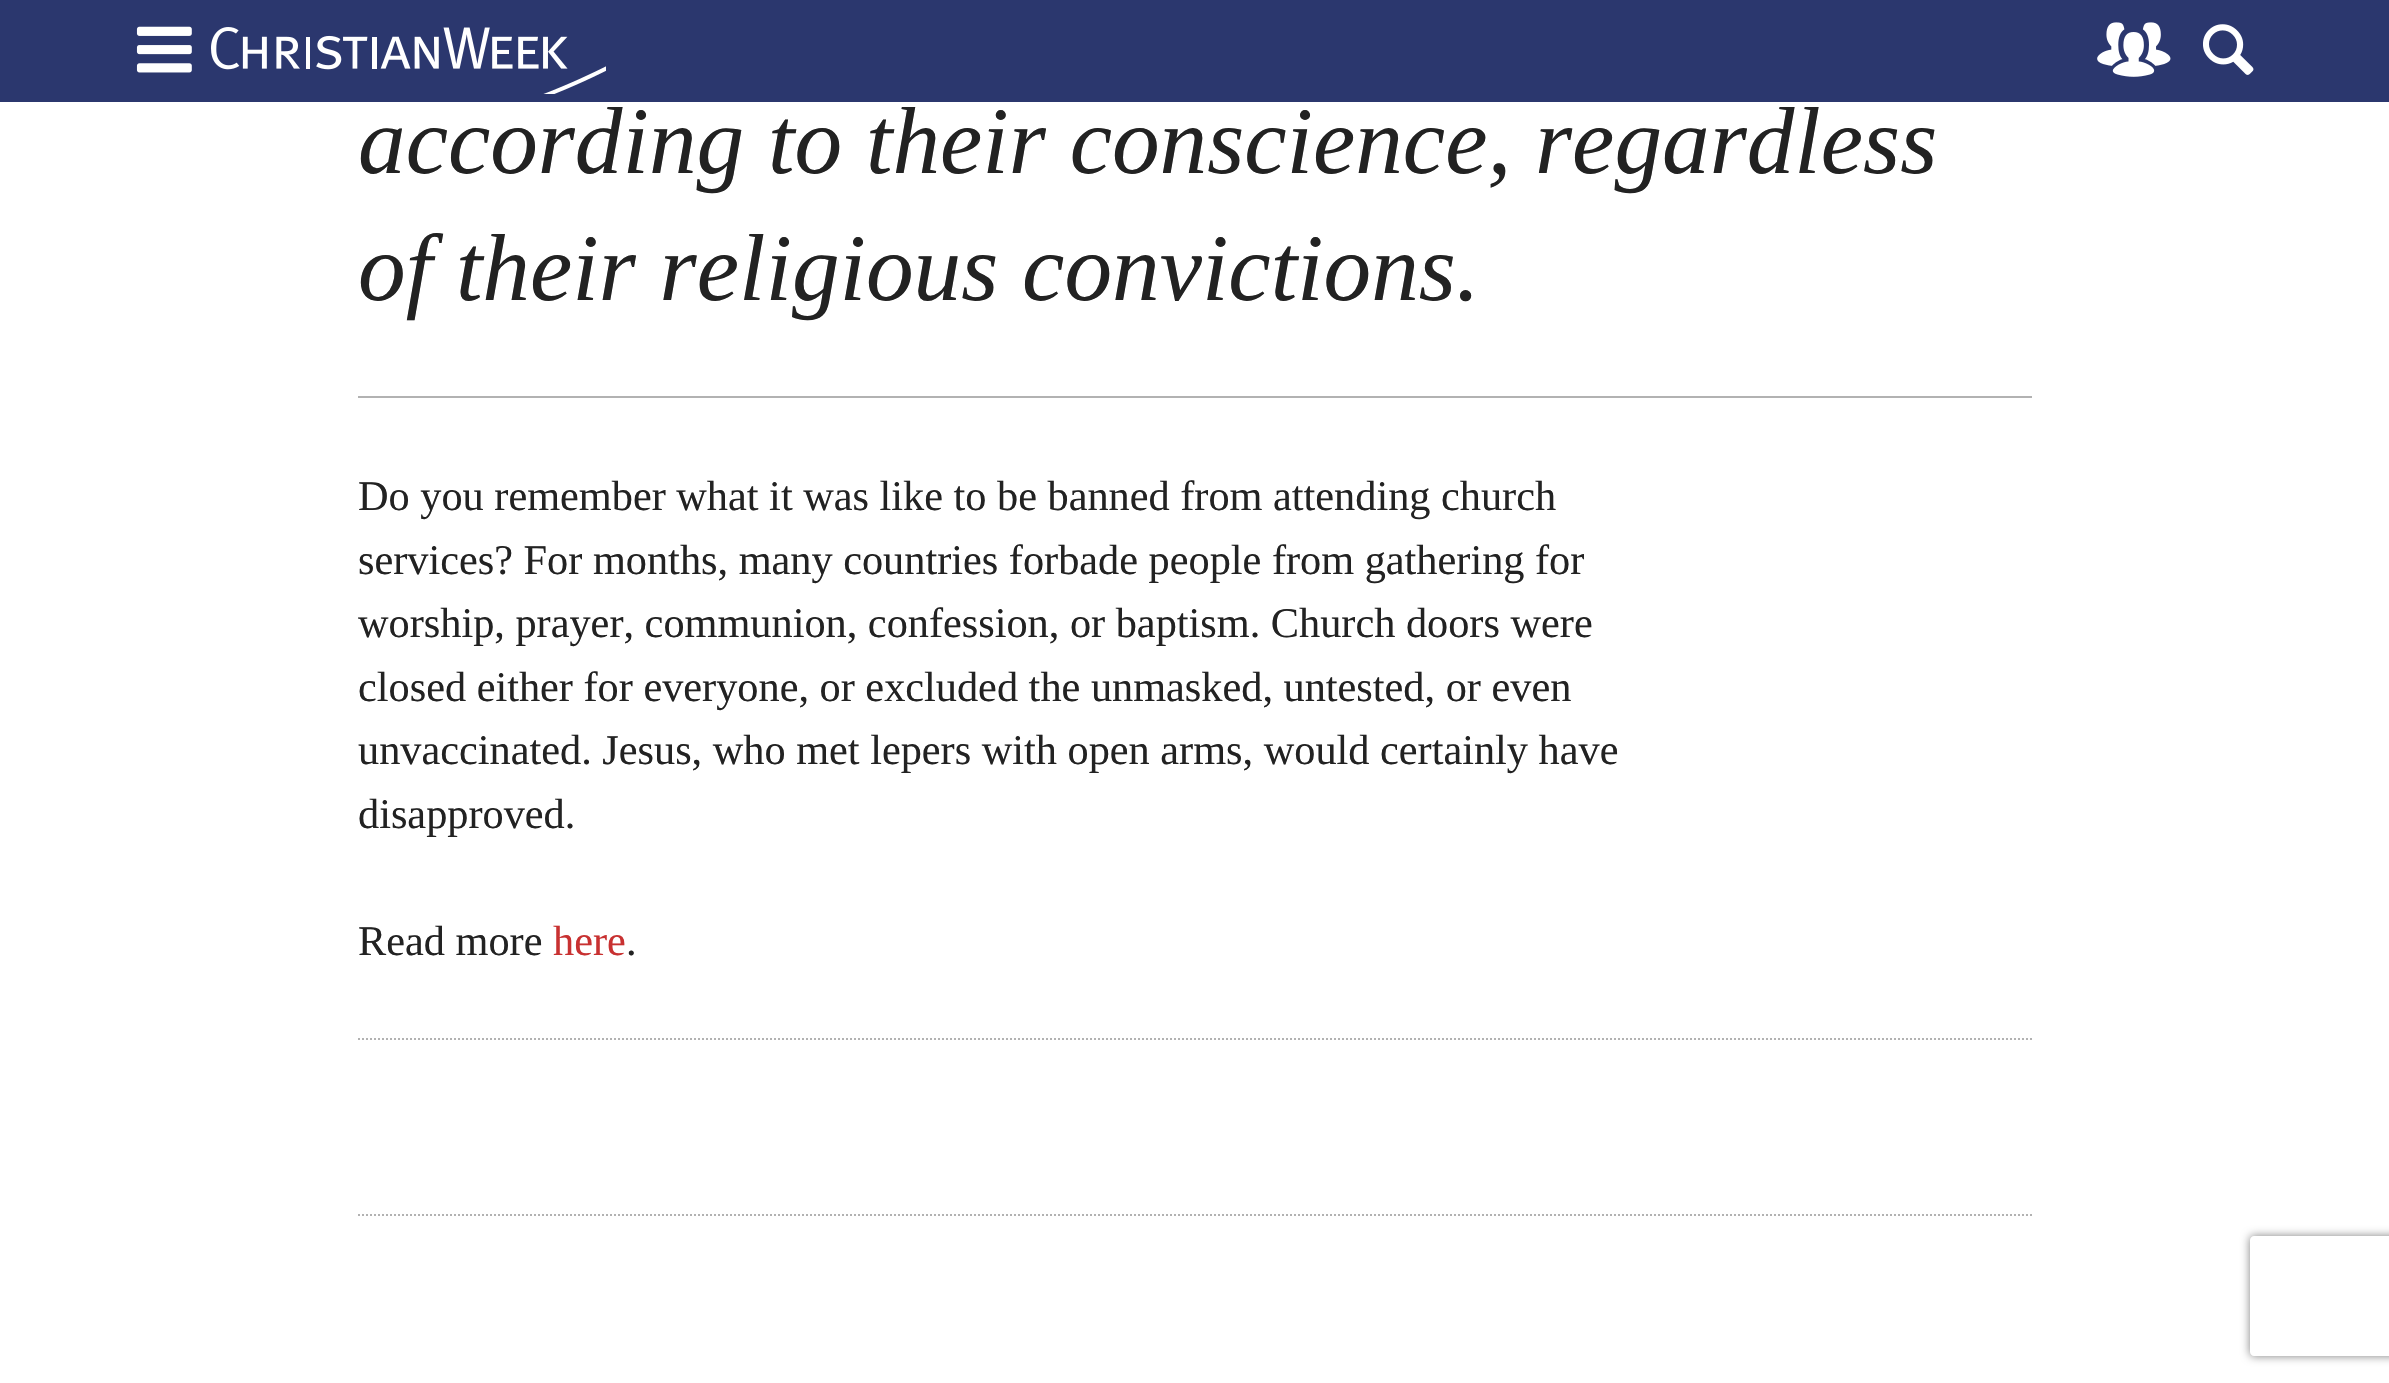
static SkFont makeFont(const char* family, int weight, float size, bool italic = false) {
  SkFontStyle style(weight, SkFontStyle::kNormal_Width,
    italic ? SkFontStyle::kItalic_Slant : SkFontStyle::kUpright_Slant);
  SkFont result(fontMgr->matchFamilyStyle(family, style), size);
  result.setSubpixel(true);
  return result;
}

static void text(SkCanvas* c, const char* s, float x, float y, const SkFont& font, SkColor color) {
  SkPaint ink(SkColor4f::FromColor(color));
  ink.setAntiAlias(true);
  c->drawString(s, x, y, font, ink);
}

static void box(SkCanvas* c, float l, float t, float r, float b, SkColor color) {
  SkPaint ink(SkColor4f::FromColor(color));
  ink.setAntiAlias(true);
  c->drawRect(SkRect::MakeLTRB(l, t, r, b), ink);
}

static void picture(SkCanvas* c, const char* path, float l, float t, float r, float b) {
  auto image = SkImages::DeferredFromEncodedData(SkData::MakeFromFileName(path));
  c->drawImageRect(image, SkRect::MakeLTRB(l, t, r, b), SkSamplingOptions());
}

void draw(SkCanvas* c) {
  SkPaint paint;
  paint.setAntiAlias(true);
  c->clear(0xffffffff);
  box(c, 0, 0, 2389, 102, 0xff2b376e);
  picture(c, "img_01.png", 136, 26, 192, 73);
  picture(c, "img_02.png", 211, 27, 606, 94);
  picture(c, "img_03.png", 2097, 22, 2171, 77);
  picture(c, "img_04.png", 2203, 24, 2254, 75);
  box(c, 358, 396, 2032, 398, 0xffb2b2b2);
  SkFont face1 = makeFont("Liberation Serif", 400, 95.25f, true);
  text(c, "according to their conscience, regardless", 358, 173, face1, 0xff222222);
  text(c, "of their religious convictions.", 358, 300, face1, 0xff222222);
  SkFont face2 = makeFont("Liberation Serif", 400, 42.3f);
  text(c, "Do you remember what it was like to be banned from attending church", 358, 510, face2, 0xff222222);
  text(c, "services? For months, many countries forbade people from gathering for", 358, 574, face2, 0xff222222);
  text(c, "worship, prayer, communion, confession, or baptism. Church doors were", 358, 637, face2, 0xff222222);
  text(c, "closed either for everyone, or excluded the unmasked, untested, or even", 358, 701, face2, 0xff222222);
  text(c, "unvaccinated. Jesus, who met lepers with open arms, would certainly have", 358, 764, face2, 0xff222222);
  text(c, "disapproved.", 358, 828, face2, 0xff222222);
  text(c, "Read more", 358, 955, face2, 0xff222222);
  text(c, "here", 553, 955, face2, 0xffc83131);
  text(c, ".", 626, 955, face2, 0xff222222);
  paint.setStyle(SkPaint::kStroke_Style);
  paint.setStrokeWidth(2);
  paint.setColor(0xffb2b2b2);
  paint.setPathEffect(SkDashPathEffect::Make({{2, 2}}, 0));
  c->drawPath(SkPathBuilder().moveTo(358, 1039).lineTo(2032, 1039).detach(), paint);
  paint.setPathEffect(nullptr);
  paint.setPathEffect(SkDashPathEffect::Make({{2, 2}}, 0));
  c->drawPath(SkPathBuilder().moveTo(358, 1215).lineTo(2032, 1215).detach(), paint);
  paint.setPathEffect(nullptr);
  c->save();
  c->clipPath(SkPathBuilder(SkPathFillType::kEvenOdd).moveTo(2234, 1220).lineTo(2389, 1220).lineTo(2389, 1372).lineTo(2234, 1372).close().moveTo(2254, 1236).lineTo(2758, 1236).cubicTo(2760, 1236, 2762, 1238, 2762, 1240).lineTo(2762, 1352).cubicTo(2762, 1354, 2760, 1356, 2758, 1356).lineTo(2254, 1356).cubicTo(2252, 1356, 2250, 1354, 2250, 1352).lineTo(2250, 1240).cubicTo(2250, 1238, 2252, 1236, 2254, 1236).close().detach(), true);
  paint.setStyle(SkPaint::kFill_Style);
  paint.setColor(0xff808080);
  paint.setMaskFilter(SkMaskFilter::MakeBlur(kNormal_SkBlurStyle, 5));
  c->drawRoundRect(SkRect::MakeLTRB(2250, 1236, 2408, 1356), 4, 4, paint);
  paint.setMaskFilter(nullptr);
  c->restore();
}
